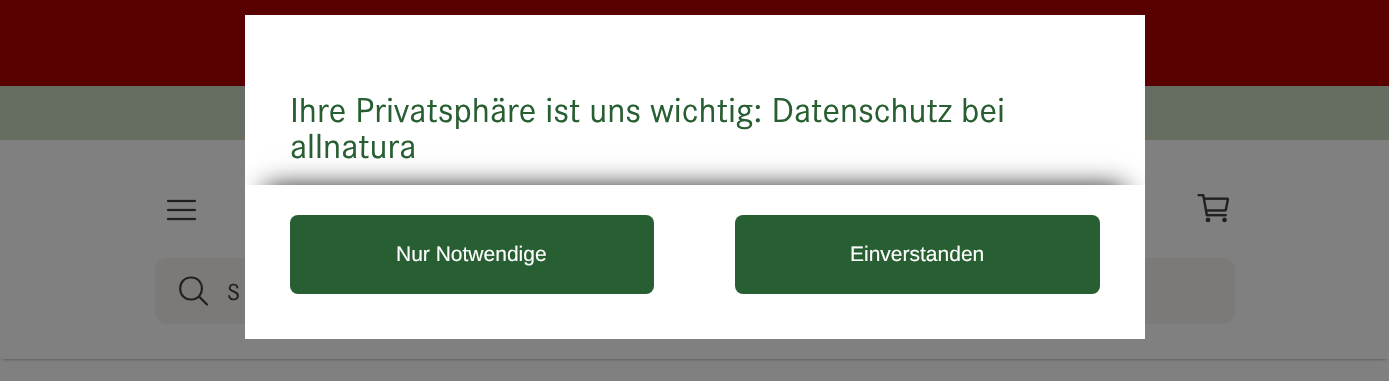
static SkFont makeFont(const char* family, int weight, float size, bool italic = false) {
  SkFontStyle style(weight, SkFontStyle::kNormal_Width,
    italic ? SkFontStyle::kItalic_Slant : SkFontStyle::kUpright_Slant);
  SkFont result(fontMgr->matchFamilyStyle(family, style), size);
  result.setSubpixel(true);
  return result;
}

static void text(SkCanvas* c, const char* s, float x, float y, const SkFont& font, SkColor color) {
  SkPaint ink(SkColor4f::FromColor(color));
  ink.setAntiAlias(true);
  c->drawString(s, x, y, font, ink);
}

static void box(SkCanvas* c, float l, float t, float r, float b, SkColor color) {
  SkPaint ink(SkColor4f::FromColor(color));
  ink.setAntiAlias(true);
  c->drawRect(SkRect::MakeLTRB(l, t, r, b), ink);
}

static void roundBox(SkCanvas* c, float l, float t, float r, float b, float radius, SkColor color) {
  SkPaint ink(SkColor4f::FromColor(color));
  ink.setAntiAlias(true);
  c->drawRoundRect(SkRect::MakeLTRB(l, t, r, b), radius, radius, ink);
}

static void picture(SkCanvas* c, const char* path, float l, float t, float r, float b) {
  auto image = SkImages::DeferredFromEncodedData(SkData::MakeFromFileName(path));
  c->drawImageRect(image, SkRect::MakeLTRB(l, t, r, b), SkSamplingOptions());
}

void draw(SkCanvas* c) {
  SkPaint paint;
  paint.setAntiAlias(true);
  c->clear(0xff808080);
  paint.setColor(0xff404040);
  paint.setMaskFilter(SkMaskFilter::MakeBlur(kNormal_SkBlurStyle, 1.5f));
  c->drawRect(SkRect::MakeLTRB(3, 6, 1386, 359), paint);
  paint.setMaskFilter(nullptr);
  box(c, 0, 140, 1389, 359, 0xff808080);
  box(c, 0, 0, 1389, 86, 0xff590000);
  box(c, 0, 86, 1389, 140, 0xff666d61);
  box(c, 245, 15, 1145, 185, 0xffffffff);
  SkFont face1 = makeFont("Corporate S", 400, 36);
  text(c, "Ihre Privatsphäre ist uns wichtig: Datenschutz bei", 290, 122, face1, 0xff285f32);
  text(c, "allnatura", 290, 158, face1, 0xff285f32);
  roundBox(c, 155, 258, 1235, 324, 12, 0xff7c7a78);
  c->save();
  c->clipRect(SkRect::MakeLTRB(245, 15, 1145, 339));
  paint.setColor(0xff000000);
  paint.setMaskFilter(SkMaskFilter::MakeBlur(kNormal_SkBlurStyle, 13));
  c->drawRect(SkRect::MakeLTRB(266, 188, 1124, 300), paint);
  paint.setMaskFilter(nullptr);
  c->restore();
  box(c, 245, 185, 1145, 339, 0xffffffff);
  roundBox(c, 290, 215, 654, 294, 8, 0xff285f32);
  SkFont face2 = makeFont("Liberation Sans", 400, 21);
  text(c, "Nur Notwendige", 396, 261, face2, 0xffffffff);
  roundBox(c, 735, 215, 1100, 294, 8, 0xff285f32);
  text(c, "Einverstanden", 850, 261, face2, 0xffffffff);
  picture(c, "img_01.png", 166, 199, 197, 221);
  picture(c, "img_02.png", 1197, 194, 1230, 223);
  paint.setStyle(SkPaint::kStroke_Style);
  paint.setStrokeWidth(2.2f);
  paint.setColor(0xff202020);
  c->drawPath(SkPathBuilder().moveTo(191, 277.5f).cubicTo(176.5f, 277.5f, 176.5f, 300, 191.5f, 299.5f).cubicTo(205.5f, 299, 205.5f, 277.5f, 191, 277.5f).close().detach(), paint);
  paint.setStrokeCap(SkPaint::kRound_Cap);
  c->drawPath(SkPathBuilder().moveTo(199.5f, 297).lineTo(207, 304.5f).detach(), paint);
  SkFont face3 = makeFont("Corporate S", 400, 24);
  text(c, "S", 227, 300, face3, 0xff202020);
}
